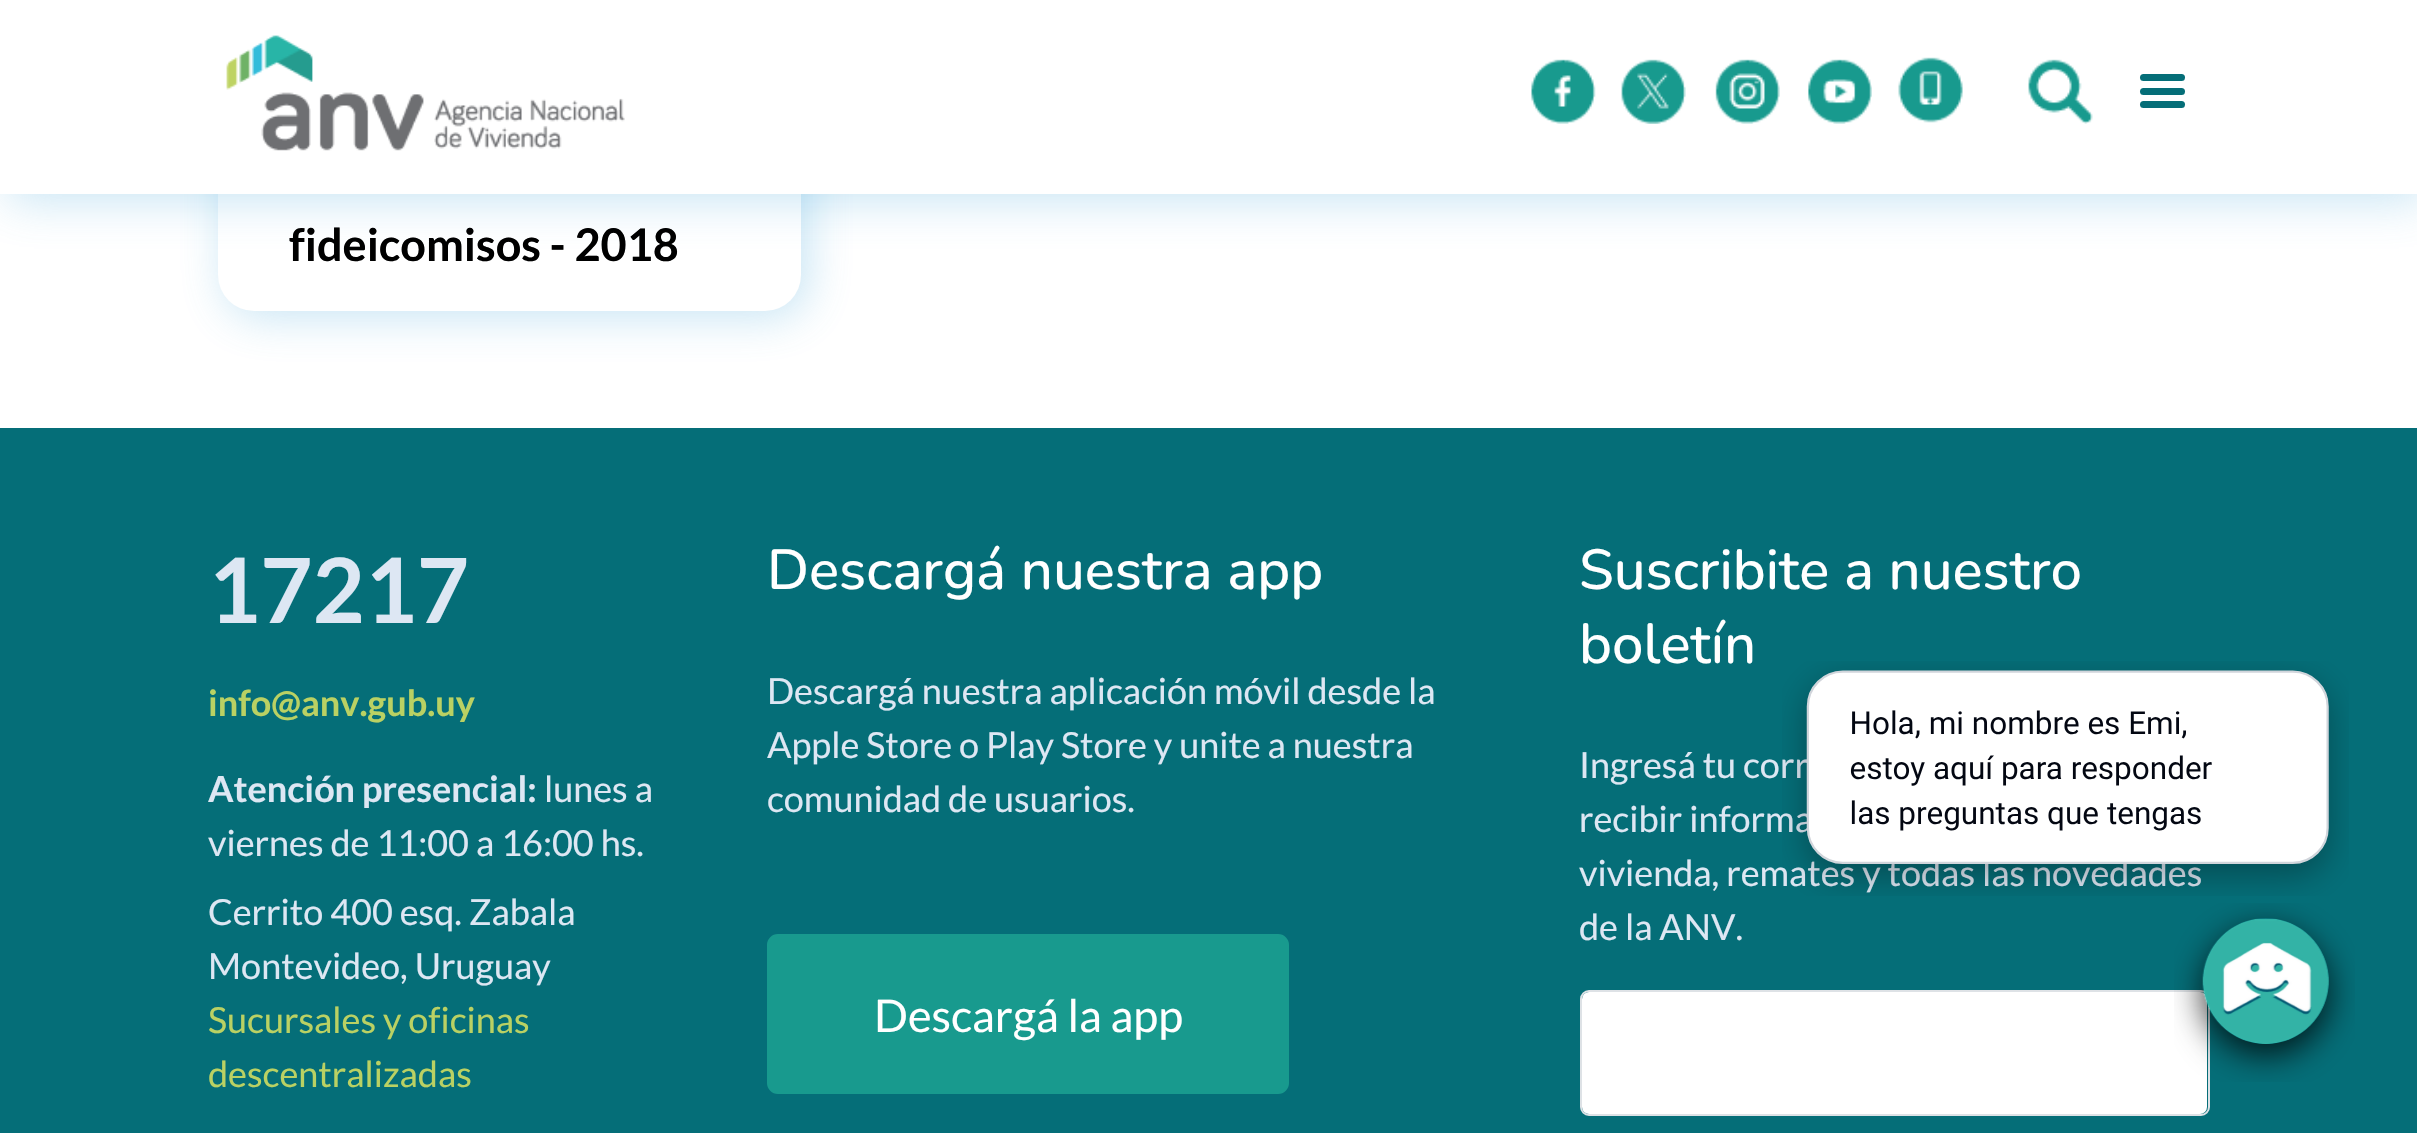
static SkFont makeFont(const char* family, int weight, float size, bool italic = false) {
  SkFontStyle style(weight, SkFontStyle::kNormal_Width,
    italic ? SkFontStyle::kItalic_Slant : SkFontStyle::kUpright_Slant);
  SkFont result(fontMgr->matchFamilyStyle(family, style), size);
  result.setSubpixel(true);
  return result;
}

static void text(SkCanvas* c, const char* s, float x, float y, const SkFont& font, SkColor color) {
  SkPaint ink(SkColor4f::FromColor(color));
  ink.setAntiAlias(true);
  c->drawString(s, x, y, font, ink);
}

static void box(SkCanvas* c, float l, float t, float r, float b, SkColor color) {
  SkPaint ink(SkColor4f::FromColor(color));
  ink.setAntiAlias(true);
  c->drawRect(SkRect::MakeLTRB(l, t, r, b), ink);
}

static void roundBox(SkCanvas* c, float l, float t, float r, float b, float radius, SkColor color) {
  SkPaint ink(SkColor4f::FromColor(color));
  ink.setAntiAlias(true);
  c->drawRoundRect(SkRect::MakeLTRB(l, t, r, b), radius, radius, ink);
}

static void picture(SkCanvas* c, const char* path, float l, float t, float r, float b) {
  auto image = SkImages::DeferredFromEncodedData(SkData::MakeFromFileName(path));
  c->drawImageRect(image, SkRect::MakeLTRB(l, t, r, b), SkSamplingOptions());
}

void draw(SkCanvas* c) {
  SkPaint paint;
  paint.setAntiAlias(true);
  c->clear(0xffffffff);
  paint.setColor(0x4d43a6dc);
  paint.setMaskFilter(SkMaskFilter::MakeBlur(kNormal_SkBlurStyle, 22.5f));
  c->drawRoundRect(SkRect::MakeLTRB(225, 101, 808, 317), 36, 36, paint);
  paint.setMaskFilter(nullptr);
  roundBox(c, 218, 95, 801, 311, 36, 0xffffffff);
  paint.setMaskFilter(SkMaskFilter::MakeBlur(kNormal_SkBlurStyle, 22.5f));
  c->drawRect(SkRect::MakeLTRB(7, 7, 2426, 200), paint);
  paint.setMaskFilter(nullptr);
  box(c, 0, 0, 2417, 194, 0xffffffff);
  picture(c, "img_01.png", 226, 35, 625, 151);
  picture(c, "img_02.png", 1531, 59, 1596, 124);
  picture(c, "img_03.png", 1621, 59, 1686, 124);
  picture(c, "img_04.png", 1715, 59, 1780, 124);
  picture(c, "img_05.png", 1808, 59, 1872, 124);
  picture(c, "img_06.png", 1898, 57, 1963, 123);
  picture(c, "img_07.png", 2028, 59, 2093, 124);
  roundBox(c, 2140, 74, 2185, 81, 3.5f, 0xff056e78);
  roundBox(c, 2140, 88, 2185, 95, 3.5f, 0xff056e78);
  roundBox(c, 2140, 101, 2185, 108, 3.5f, 0xff056e78);
  SkFont face1 = makeFont("Lato", 700, 45);
  text(c, "fideicomisos - 2018", 289, 261, face1, 0xff000000);
  box(c, 0, 428, 2417, 1133, 0xff056e78);
  SkFont face2 = makeFont("Lato", 700, 90);
  text(c, "17217", 208, 623, face2, 0xffdde7f3);
  SkFont face3 = makeFont("Lato", 700, 36);
  text(c, "info@anv.gub.uy", 208, 716, face3, 0xffbad163);
  text(c, "Atención presencial:", 208, 802, face3, 0xffdde7f3);
  SkFont face4 = makeFont("Lato", 400, 36);
  text(c, "lunes a", 544, 802, face4, 0xffdde7f3);
  text(c, "viernes de 11:00 a 16:00 hs.", 208, 856, face4, 0xffdde7f3);
  text(c, "Cerrito 400 esq. Zabala", 208, 925, face4, 0xffdde7f3);
  text(c, "Montevideo, Uruguay", 208, 979, face4, 0xffdde7f3);
  text(c, "Sucursales y oficinas", 208, 1033, face4, 0xffbad163);
  text(c, "descentralizadas", 208, 1087, face4, 0xffbad163);
  SkFont face5 = makeFont("Nunito", 500, 56.25f);
  text(c, "Descargá nuestra app", 767, 589, face5, 0xffffffff);
  text(c, "Descargá nuestra aplicación móvil desde la", 767, 704, face4, 0xffdde7f3);
  text(c, "Apple Store o Play Store y unite a nuestra", 767, 758, face4, 0xffdde7f3);
  text(c, "comunidad de usuarios.", 767, 812, face4, 0xffdde7f3);
  paint.setColor(0xff189a8e);
  c->drawRoundRect(SkRect::MakeLTRB(768, 935, 1288, 1093), 10, 10, paint);
  paint.setStyle(SkPaint::kStroke_Style);
  paint.setStrokeWidth(2);
  c->drawRoundRect(SkRect::MakeLTRB(768, 935, 1288, 1093), 10, 10, paint);
  SkFont face6 = makeFont("Lato", 400, 45);
  text(c, "Descargá la app", 874, 1032, face6, 0xffffffff);
  text(c, "Suscribite a nuestro", 1579, 589, face5, 0xffffffff);
  text(c, "boletín", 1579, 663, face5, 0xffffffff);
  text(c, "Ingresá tu corr", 1579, 778, face4, 0xffdde7f3);
  text(c, "recibir informa", 1579, 832, face4, 0xffdde7f3);
  text(c, "vivienda, remates y todas las novedades", 1579, 886, face4, 0xffdde7f3);
  text(c, "de la ANV.", 1579, 940, face4, 0xffdde7f3);
  roundBox(c, 1582, 992, 2207, 1114, 7, 0xffffffff);
  paint.setColor(0xffdee2e6);
  c->drawRoundRect(SkRect::MakeLTRB(1581, 991, 2209, 1115), 8, 8, paint);
  picture(c, "img_08.png", 1782, 661, 2349, 896);
  picture(c, "img_09.png", 2174, 903, 2355, 1082);
}
